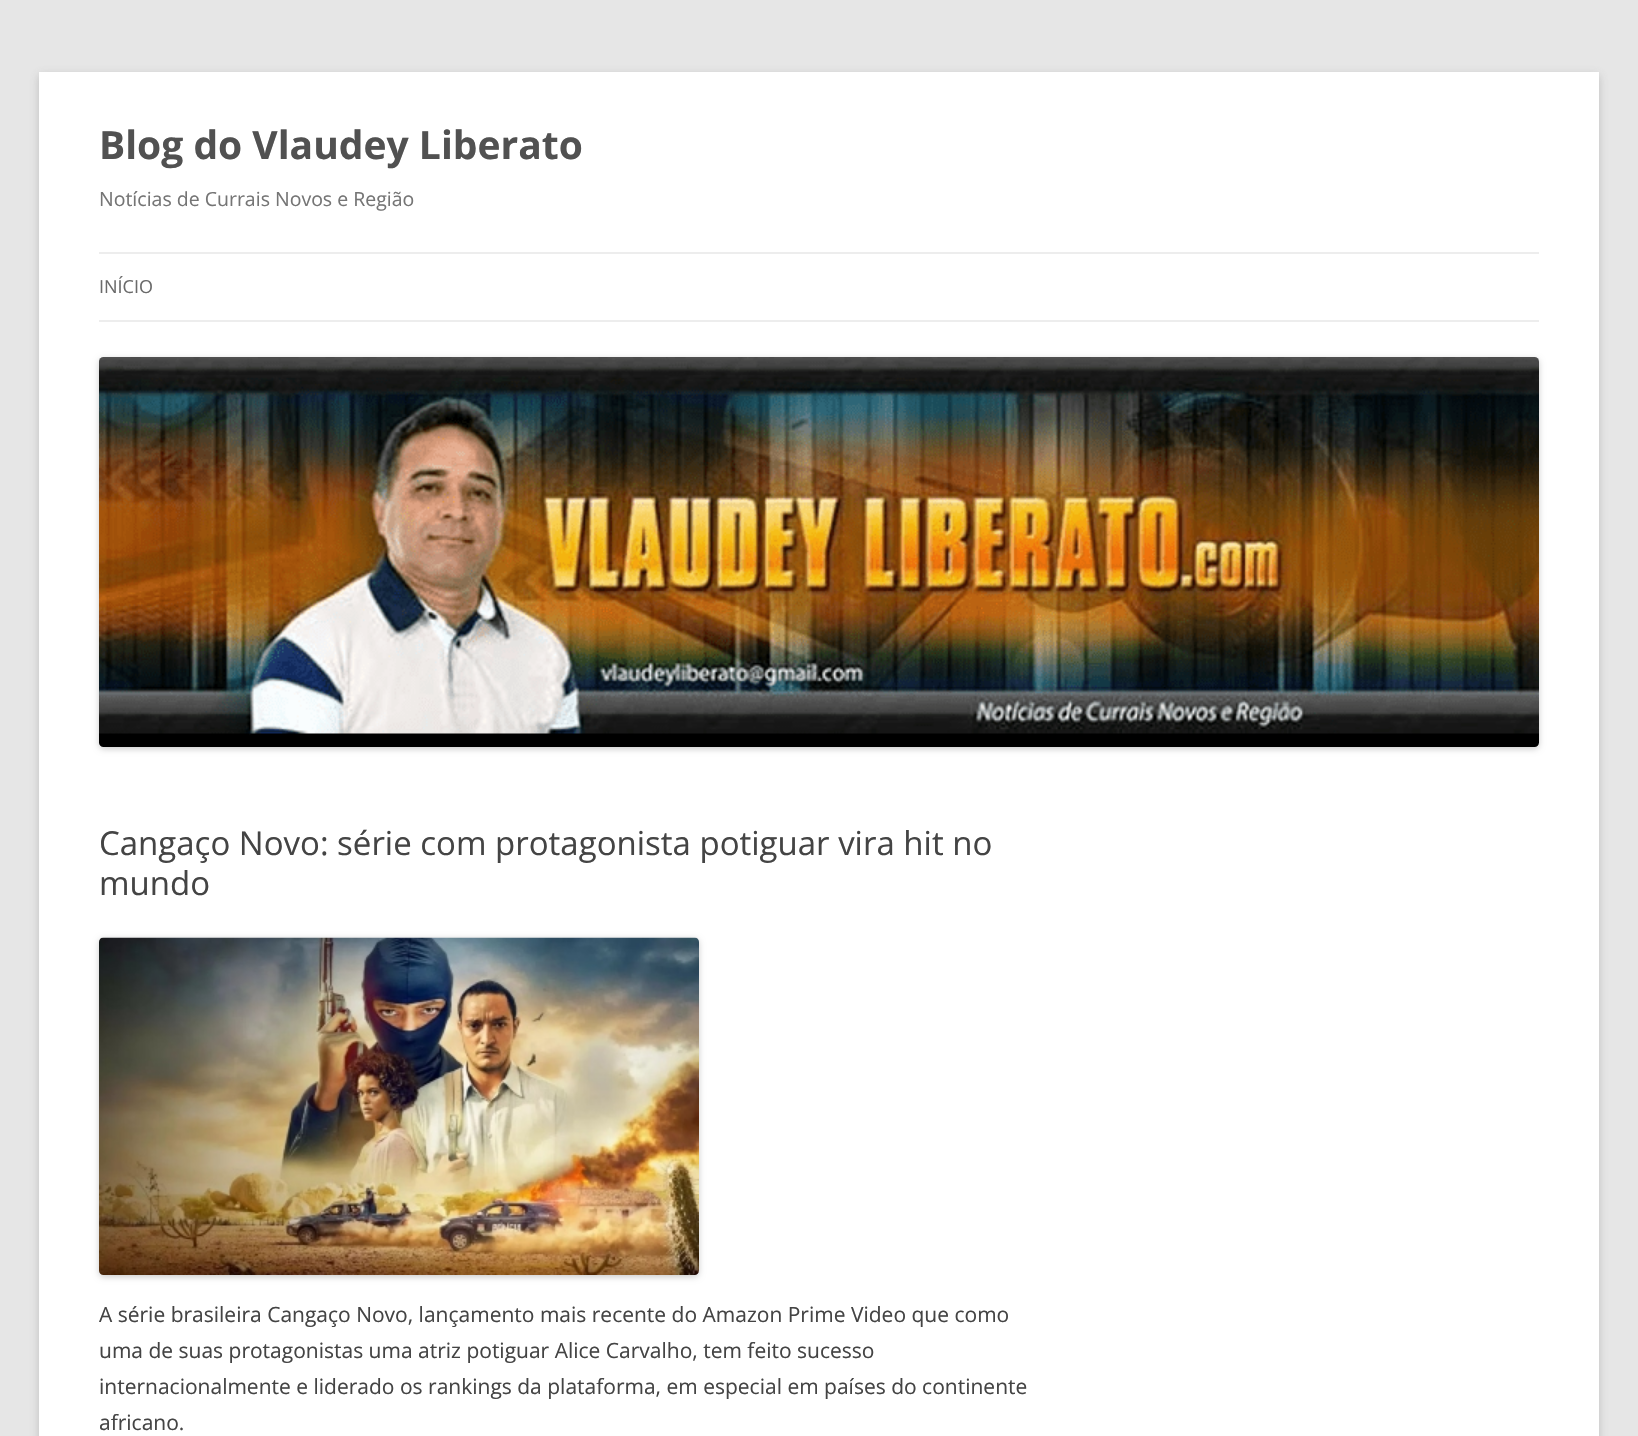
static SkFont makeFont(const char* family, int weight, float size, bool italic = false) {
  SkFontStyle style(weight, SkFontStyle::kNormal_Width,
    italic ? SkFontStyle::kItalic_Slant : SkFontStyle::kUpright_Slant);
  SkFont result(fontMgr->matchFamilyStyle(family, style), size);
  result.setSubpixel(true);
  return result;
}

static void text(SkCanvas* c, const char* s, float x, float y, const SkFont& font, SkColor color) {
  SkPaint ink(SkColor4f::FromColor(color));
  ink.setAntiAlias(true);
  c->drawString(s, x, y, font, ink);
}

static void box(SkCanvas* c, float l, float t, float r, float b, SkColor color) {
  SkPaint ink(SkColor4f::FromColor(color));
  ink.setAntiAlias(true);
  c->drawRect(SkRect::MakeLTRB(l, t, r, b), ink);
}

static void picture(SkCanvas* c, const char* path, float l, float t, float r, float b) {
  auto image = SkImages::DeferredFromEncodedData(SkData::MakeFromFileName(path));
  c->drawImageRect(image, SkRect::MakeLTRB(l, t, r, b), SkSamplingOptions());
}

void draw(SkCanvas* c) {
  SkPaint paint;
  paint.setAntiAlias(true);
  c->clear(0xffe6e6e6);
  paint.setColor(0x4d646464);
  paint.setMaskFilter(SkMaskFilter::MakeBlur(kNormal_SkBlurStyle, 4.5f));
  c->drawRect(SkRect::MakeLTRB(39, 75, 1599, 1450), paint);
  paint.setMaskFilter(nullptr);
  box(c, 39, 72, 1599, 1436, 0xffffffff);
  SkFont face1 = makeFont("Open Sans", 700, 39);
  text(c, "Blog do Vlaudey Liberato", 99, 159, face1, 0xff515151);
  SkFont face2 = makeFont("Open Sans", 400, 19.5f);
  text(c, "Notícias de Currais Novos e Região", 99, 206, face2, 0xff757575);
  box(c, 99, 252, 1539, 254, 0xffededed);
  box(c, 99, 320, 1539, 322, 0xffededed);
  SkFont face3 = makeFont("Open Sans", 400, 18);
  text(c, "INÍCIO", 99, 293, face3, 0xff6a6a6a);
  paint.setColor(0x33000000);
  paint.setMaskFilter(SkMaskFilter::MakeBlur(kNormal_SkBlurStyle, 3));
  c->drawRoundRect(SkRect::MakeLTRB(99, 359, 1539, 749), 5, 5, paint);
  paint.setMaskFilter(nullptr);
  picture(c, "img_01.png", 99, 357, 1539, 747);
  SkFont face4 = makeFont("Open Sans", 400, 33);
  text(c, "Cangaço Novo: série com protagonista potiguar vira hit no", 99, 855, face4, 0xff444444);
  text(c, "mundo", 99, 895, face4, 0xff444444);
  paint.setMaskFilter(SkMaskFilter::MakeBlur(kNormal_SkBlurStyle, 3));
  c->drawRoundRect(SkRect::MakeLTRB(99, 939, 699, 1277), 5, 5, paint);
  paint.setMaskFilter(nullptr);
  picture(c, "img_02.png", 99, 937, 699, 1275);
  SkFont face5 = makeFont("Open Sans", 400, 21);
  text(c, "A série brasileira Cangaço Novo, lançamento mais recente do Amazon Prime Video que como", 99, 1322, face5, 0xff444444);
  text(c, "uma de suas protagonistas uma atriz potiguar Alice Carvalho, tem feito sucesso", 99, 1358, face5, 0xff444444);
  text(c, "internacionalmente e liderado os rankings da plataforma, em especial em países do continente", 99, 1394, face5, 0xff444444);
  text(c, "africano.", 99, 1430, face5, 0xff444444);
}
